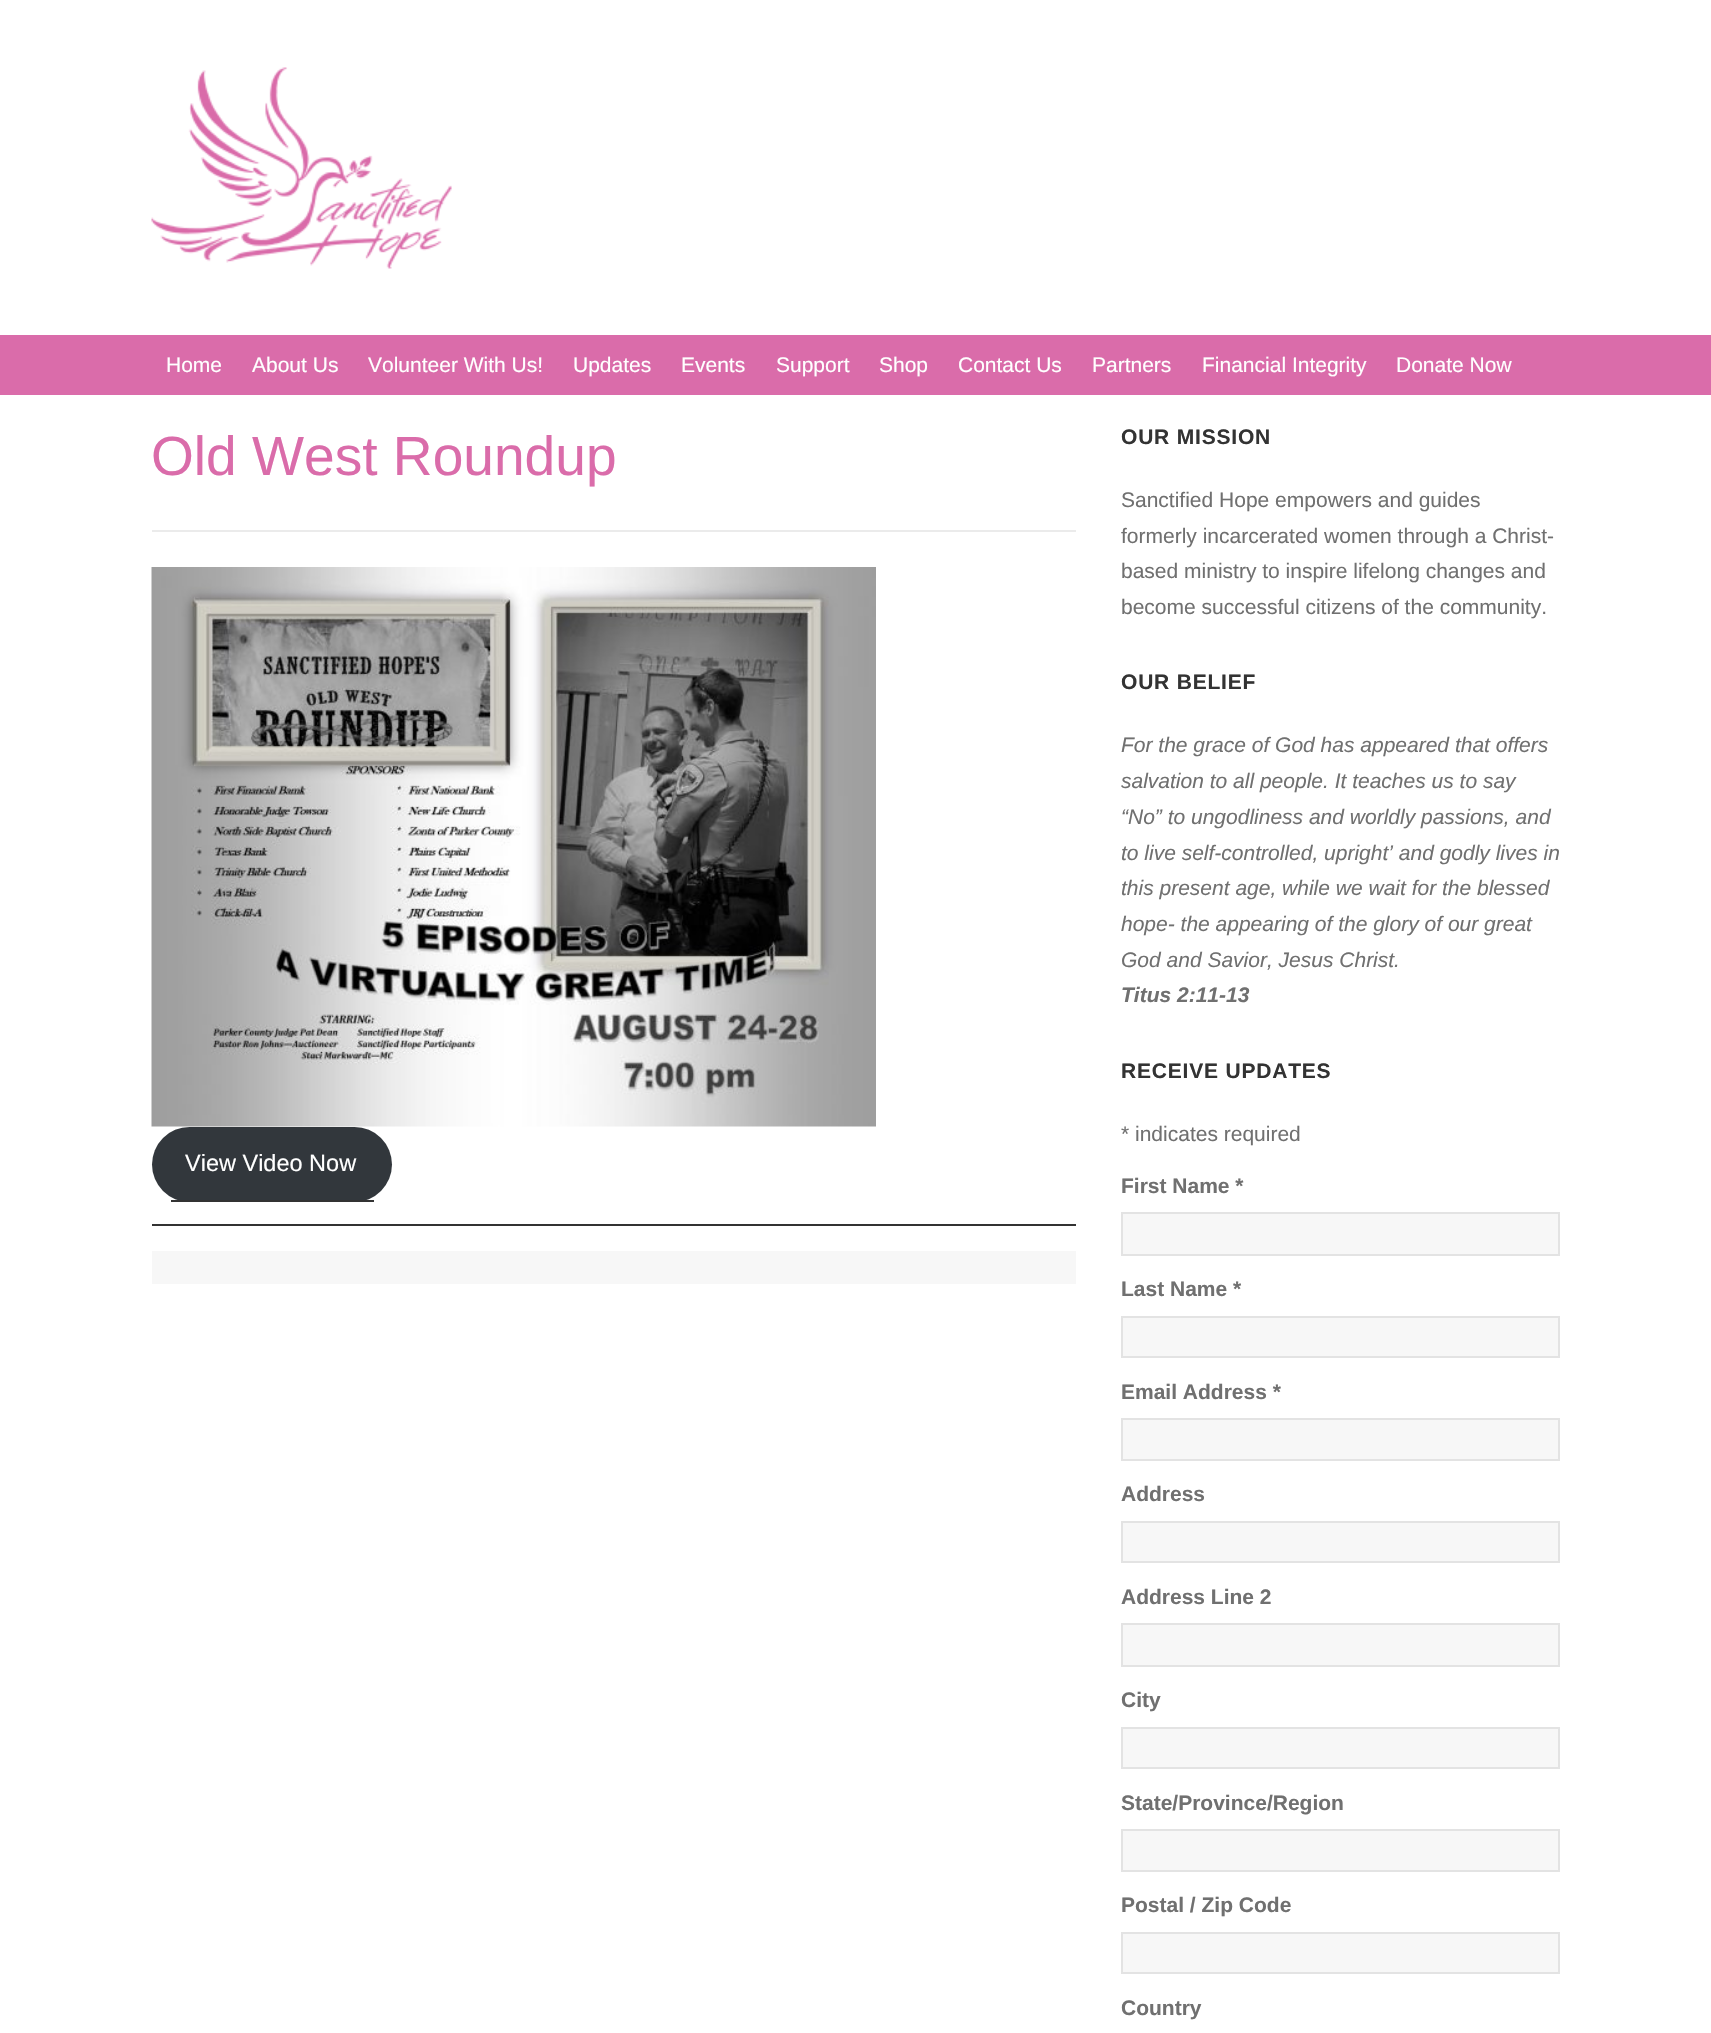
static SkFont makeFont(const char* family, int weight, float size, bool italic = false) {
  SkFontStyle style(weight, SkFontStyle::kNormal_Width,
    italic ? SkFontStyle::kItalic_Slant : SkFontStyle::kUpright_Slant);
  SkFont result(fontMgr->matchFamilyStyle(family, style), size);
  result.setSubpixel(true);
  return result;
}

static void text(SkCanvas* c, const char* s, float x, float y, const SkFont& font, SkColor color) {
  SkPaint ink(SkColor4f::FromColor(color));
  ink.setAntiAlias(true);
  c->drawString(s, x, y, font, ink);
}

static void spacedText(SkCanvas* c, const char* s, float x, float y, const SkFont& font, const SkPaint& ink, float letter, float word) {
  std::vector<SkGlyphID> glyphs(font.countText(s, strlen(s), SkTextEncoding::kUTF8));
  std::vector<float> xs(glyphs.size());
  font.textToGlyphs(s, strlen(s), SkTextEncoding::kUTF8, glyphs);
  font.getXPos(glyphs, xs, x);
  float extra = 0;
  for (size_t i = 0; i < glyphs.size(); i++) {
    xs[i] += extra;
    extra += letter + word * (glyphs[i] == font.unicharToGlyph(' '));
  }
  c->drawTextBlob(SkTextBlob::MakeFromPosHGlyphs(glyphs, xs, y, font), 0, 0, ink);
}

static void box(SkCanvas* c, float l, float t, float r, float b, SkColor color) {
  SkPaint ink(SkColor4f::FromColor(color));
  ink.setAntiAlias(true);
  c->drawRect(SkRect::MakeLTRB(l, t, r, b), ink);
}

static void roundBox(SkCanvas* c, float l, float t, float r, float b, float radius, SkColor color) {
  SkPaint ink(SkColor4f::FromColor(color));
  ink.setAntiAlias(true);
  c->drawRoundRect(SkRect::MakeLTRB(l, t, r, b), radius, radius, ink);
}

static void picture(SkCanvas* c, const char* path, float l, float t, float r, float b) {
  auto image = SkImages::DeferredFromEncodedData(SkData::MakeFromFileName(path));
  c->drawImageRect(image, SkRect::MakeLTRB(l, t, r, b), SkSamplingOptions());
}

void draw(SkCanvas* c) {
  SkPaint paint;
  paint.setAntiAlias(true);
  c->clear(0xffffffff);
  picture(c, "img_01.png", 151, 67, 452, 269);
  box(c, 0, 335, 1711, 395, 0xffda6caa);
  SkFont face1 = makeFont("Liberation Sans", 400, 21);
  text(c, "Home", 166, 372, face1, 0xffffffff);
  text(c, "About Us", 252, 372, face1, 0xffffffff);
  text(c, "Volunteer With Us!", 368, 372, face1, 0xffffffff);
  text(c, "Updates", 573, 372, face1, 0xffffffff);
  text(c, "Events", 681, 372, face1, 0xffffffff);
  text(c, "Support", 776, 372, face1, 0xffffffff);
  text(c, "Shop", 879, 372, face1, 0xffffffff);
  text(c, "Contact Us", 958, 372, face1, 0xffffffff);
  text(c, "Partners", 1092, 372, face1, 0xffffffff);
  text(c, "Financial Integrity", 1202, 372, face1, 0xffffffff);
  text(c, "Donate Now", 1396, 372, face1, 0xffffffff);
  box(c, 152, 530, 1076, 532, 0xffebebeb);
  SkFont face2 = makeFont("Liberation Sans", 400, 55.1f);
  text(c, "Old West Roundup", 151, 475, face2, 0xffda6caa);
  picture(c, "img_02.png", 151, 567, 876, 1127);
  roundBox(c, 152, 1127, 392, 1202, 37.5f, 0xff32373c);
  box(c, 171, 1200, 374, 1202, 0xff333333);
  SkFont face3 = makeFont("Liberation Sans", 400, 23.5f);
  text(c, "View Video Now", 185, 1171, face3, 0xffffffff);
  box(c, 152, 1224, 1076, 1226, 0xff333333);
  box(c, 152, 1251, 1076, 1284, 0xfff7f7f7);
  SkFont face4 = makeFont("Liberation Sans", 700, 21);
  paint.setColor(0xff333333);
  spacedText(c, "OUR MISSION", 1121, 444, face4, paint, 0.8f, 0);
  text(c, "Sanctified Hope empowers and guides", 1121, 507, face1, 0xff707070);
  text(c, "formerly incarcerated women through a Christ-", 1121, 543, face1, 0xff707070);
  text(c, "based ministry to inspire lifelong changes and", 1121, 578, face1, 0xff707070);
  text(c, "become successful citizens of the community.", 1121, 614, face1, 0xff707070);
  spacedText(c, "OUR BELIEF", 1121, 689, face4, paint, 0.8f, 0);
  SkFont face5 = makeFont("Liberation Sans", 400, 21, true);
  text(c, "For the grace of God has appeared that offers", 1121, 752, face5, 0xff707070);
  text(c, "salvation to all people. It teaches us to say", 1121, 788, face5, 0xff707070);
  text(c, "“No” to ungodliness and worldly passions, and", 1121, 824, face5, 0xff707070);
  text(c, "to live self-controlled, upright’ and godly lives in", 1121, 860, face5, 0xff707070);
  text(c, "this present age, while we wait for the blessed", 1121, 895, face5, 0xff707070);
  text(c, "hope- the appearing of the glory of our great", 1121, 931, face5, 0xff707070);
  text(c, "God and Savior, Jesus Christ.", 1121, 967, face5, 0xff707070);
  SkFont face6 = makeFont("Liberation Sans", 700, 21, true);
  text(c, "Titus 2:11-13", 1121, 1002, face6, 0xff707070);
  spacedText(c, "RECEIVE UPDATES", 1121, 1078, face4, paint, 0.8f, 0);
  text(c, "* indicates required", 1121, 1141, face1, 0xff707070);
  text(c, "First Name *", 1121, 1193, face4, 0xff707070);
  paint.setColor(0xfff7f7f7);
  c->drawRect(SkRect::MakeLTRB(1122, 1213, 1559, 1255), paint);
  paint.setStyle(SkPaint::kStroke_Style);
  paint.setStrokeWidth(2);
  paint.setColor(0xffe3e3e3);
  c->drawRect(SkRect::MakeLTRB(1122, 1213, 1559, 1255), paint);
  text(c, "Last Name *", 1121, 1296, face4, 0xff707070);
  paint.setStyle(SkPaint::kFill_Style);
  paint.setColor(0xfff7f7f7);
  c->drawRect(SkRect::MakeLTRB(1122, 1317, 1559, 1357), paint);
  paint.setStyle(SkPaint::kStroke_Style);
  paint.setColor(0xffe3e3e3);
  c->drawRect(SkRect::MakeLTRB(1122, 1317, 1559, 1357), paint);
  text(c, "Email Address *", 1121, 1399, face4, 0xff707070);
  paint.setStyle(SkPaint::kFill_Style);
  paint.setColor(0xfff7f7f7);
  c->drawRect(SkRect::MakeLTRB(1122, 1419, 1559, 1460), paint);
  paint.setStyle(SkPaint::kStroke_Style);
  paint.setColor(0xffe3e3e3);
  c->drawRect(SkRect::MakeLTRB(1122, 1419, 1559, 1460), paint);
  text(c, "Address", 1121, 1501, face4, 0xff707070);
  paint.setStyle(SkPaint::kFill_Style);
  paint.setColor(0xfff7f7f7);
  c->drawRect(SkRect::MakeLTRB(1122, 1522, 1559, 1562), paint);
  paint.setStyle(SkPaint::kStroke_Style);
  paint.setColor(0xffe3e3e3);
  c->drawRect(SkRect::MakeLTRB(1122, 1522, 1559, 1562), paint);
  text(c, "Address Line 2", 1121, 1604, face4, 0xff707070);
  paint.setStyle(SkPaint::kFill_Style);
  paint.setColor(0xfff7f7f7);
  c->drawRect(SkRect::MakeLTRB(1122, 1624, 1559, 1666), paint);
  paint.setStyle(SkPaint::kStroke_Style);
  paint.setColor(0xffe3e3e3);
  c->drawRect(SkRect::MakeLTRB(1122, 1624, 1559, 1666), paint);
  text(c, "City", 1121, 1707, face4, 0xff707070);
  paint.setStyle(SkPaint::kFill_Style);
  paint.setColor(0xfff7f7f7);
  c->drawRect(SkRect::MakeLTRB(1122, 1728, 1559, 1768), paint);
  paint.setStyle(SkPaint::kStroke_Style);
  paint.setColor(0xffe3e3e3);
  c->drawRect(SkRect::MakeLTRB(1122, 1728, 1559, 1768), paint);
  text(c, "State/Province/Region", 1121, 1810, face4, 0xff707070);
  paint.setStyle(SkPaint::kFill_Style);
  paint.setColor(0xfff7f7f7);
  c->drawRect(SkRect::MakeLTRB(1122, 1830, 1559, 1871), paint);
  paint.setStyle(SkPaint::kStroke_Style);
  paint.setColor(0xffe3e3e3);
  c->drawRect(SkRect::MakeLTRB(1122, 1830, 1559, 1871), paint);
  text(c, "Postal / Zip Code", 1121, 1912, face4, 0xff707070);
  paint.setStyle(SkPaint::kFill_Style);
  paint.setColor(0xfff7f7f7);
  c->drawRect(SkRect::MakeLTRB(1122, 1933, 1559, 1973), paint);
  paint.setStyle(SkPaint::kStroke_Style);
  paint.setColor(0xffe3e3e3);
  c->drawRect(SkRect::MakeLTRB(1122, 1933, 1559, 1973), paint);
  text(c, "Country", 1121, 2015, face4, 0xff707070);
}
